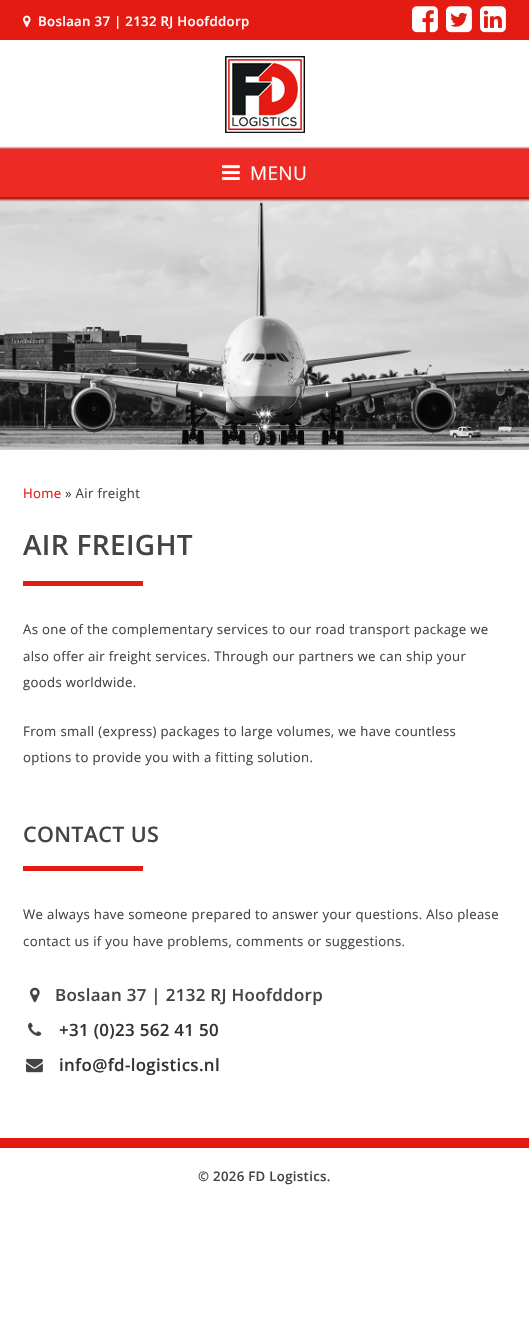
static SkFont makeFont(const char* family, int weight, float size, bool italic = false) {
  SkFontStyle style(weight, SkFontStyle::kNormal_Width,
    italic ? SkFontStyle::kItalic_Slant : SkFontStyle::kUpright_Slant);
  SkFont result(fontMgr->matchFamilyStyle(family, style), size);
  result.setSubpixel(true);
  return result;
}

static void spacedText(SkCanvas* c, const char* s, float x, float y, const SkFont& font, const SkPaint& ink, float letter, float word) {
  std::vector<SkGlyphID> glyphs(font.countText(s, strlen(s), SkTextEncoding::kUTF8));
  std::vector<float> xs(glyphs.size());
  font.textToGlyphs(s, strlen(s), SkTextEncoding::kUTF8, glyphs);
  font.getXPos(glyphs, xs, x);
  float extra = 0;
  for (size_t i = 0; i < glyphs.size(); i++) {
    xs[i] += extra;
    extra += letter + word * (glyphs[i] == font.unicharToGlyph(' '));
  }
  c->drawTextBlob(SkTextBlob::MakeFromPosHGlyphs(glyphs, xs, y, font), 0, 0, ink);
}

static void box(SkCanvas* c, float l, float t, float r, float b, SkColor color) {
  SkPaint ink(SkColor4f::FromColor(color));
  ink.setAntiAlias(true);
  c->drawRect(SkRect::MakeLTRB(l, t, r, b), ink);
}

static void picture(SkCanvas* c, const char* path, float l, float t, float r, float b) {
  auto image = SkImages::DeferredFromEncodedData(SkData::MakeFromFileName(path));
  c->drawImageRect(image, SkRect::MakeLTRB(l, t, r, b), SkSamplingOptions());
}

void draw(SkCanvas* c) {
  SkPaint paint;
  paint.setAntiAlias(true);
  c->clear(0xffffffff);
  box(c, 0, 0, 529, 40, 0xffe41b13);
  picture(c, "img_01.png", 23, 15, 31, 27);
  SkFont face1 = makeFont("Open Sans", 600, 13.2f);
  paint.setColor(0xffffffff);
  spacedText(c, "Boslaan 37 | 2132 RJ Hoofddorp", 38, 26, face1, paint, 0.32f, 0);
  picture(c, "img_02.png", 412, 6, 438, 33);
  picture(c, "img_03.png", 446, 6, 472, 33);
  picture(c, "img_04.png", 480, 6, 506, 33);
  picture(c, "img_05.png", 225, 56, 305, 133);
  picture(c, "img_07.png", 0, 200, 529, 450);
  paint.setColor(0xffb5150f);
  paint.setMaskFilter(SkMaskFilter::MakeBlur(kNormal_SkBlurStyle, 1));
  c->drawRect(SkRect::MakeLTRB(-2, 148, 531, 200), paint);
  paint.setMaskFilter(nullptr);
  box(c, 0, 149, 529, 197, 0xffed2b24);
  picture(c, "img_06.png", 222, 165, 240, 180);
  SkFont face2 = makeFont("Open Sans", 400, 19);
  paint.setColor(0xffffffff);
  spacedText(c, "MENU", 250, 180, face2, paint, 0.32f, 0);
  SkFont face3 = makeFont("Open Sans", 400, 13.2f);
  paint.setColor(0xffe41b13);
  spacedText(c, "Home", 23, 498, face3, paint, 0.32f, 0);
  paint.setColor(0xff444444);
  spacedText(c, "» Air freight", 65, 498, face3, paint, 0.32f, 0);
  SkFont face4 = makeFont("Open Sans", 600, 28);
  spacedText(c, "AIR FREIGHT", 23, 555, face4, paint, 0.32f, 0);
  box(c, 23, 581, 143, 586, 0xffe41b13);
  spacedText(c, "As one of the complementary services to our road transport package we", 23, 634, face3, paint, 0.32f, 0);
  spacedText(c, "also offer air freight services. Through our partners we can ship your", 23, 661, face3, paint, 0.32f, 0);
  spacedText(c, "goods worldwide.", 23, 687, face3, paint, 0.32f, 0);
  spacedText(c, "From small (express) packages to large volumes, we have countless", 23, 736, face3, paint, 0.32f, 0);
  spacedText(c, "options to provide you with a fitting solution.", 23, 762, face3, paint, 0.32f, 0);
  SkFont face5 = makeFont("Open Sans", 600, 21.5f);
  spacedText(c, "CONTACT US", 23, 842, face5, paint, 0.32f, 0);
  box(c, 23, 866, 143, 871, 0xffe41b13);
  spacedText(c, "We always have someone prepared to answer your questions. Also please", 23, 919, face3, paint, 0.32f, 0);
  spacedText(c, "contact us if you have problems, comments or suggestions.", 23, 946, face3, paint, 0.32f, 0);
  picture(c, "img_08.png", 30, 987, 40, 1003);
  SkFont face6 = makeFont("Open Sans", 600, 16.9f);
  spacedText(c, "Boslaan 37 | 2132 RJ Hoofddorp", 55, 1001, face6, paint, 0.32f, 0);
  picture(c, "img_09.png", 28, 1022, 42, 1036);
  paint.setColor(0xff333333);
  spacedText(c, "+31 (0)23 562 41 50", 59, 1036, face6, paint, 0.32f, 0);
  picture(c, "img_10.png", 26, 1058, 43, 1073);
  spacedText(c, "info@fd-logistics.nl", 59, 1071, face6, paint, 0.32f, 0);
  box(c, 0, 1138, 529, 1148, 0xffe41b13);
  paint.setColor(0xff444444);
  spacedText(c, "© 2026 FD Logistics.", 198, 1181, face1, paint, 0.32f, 0);
}
